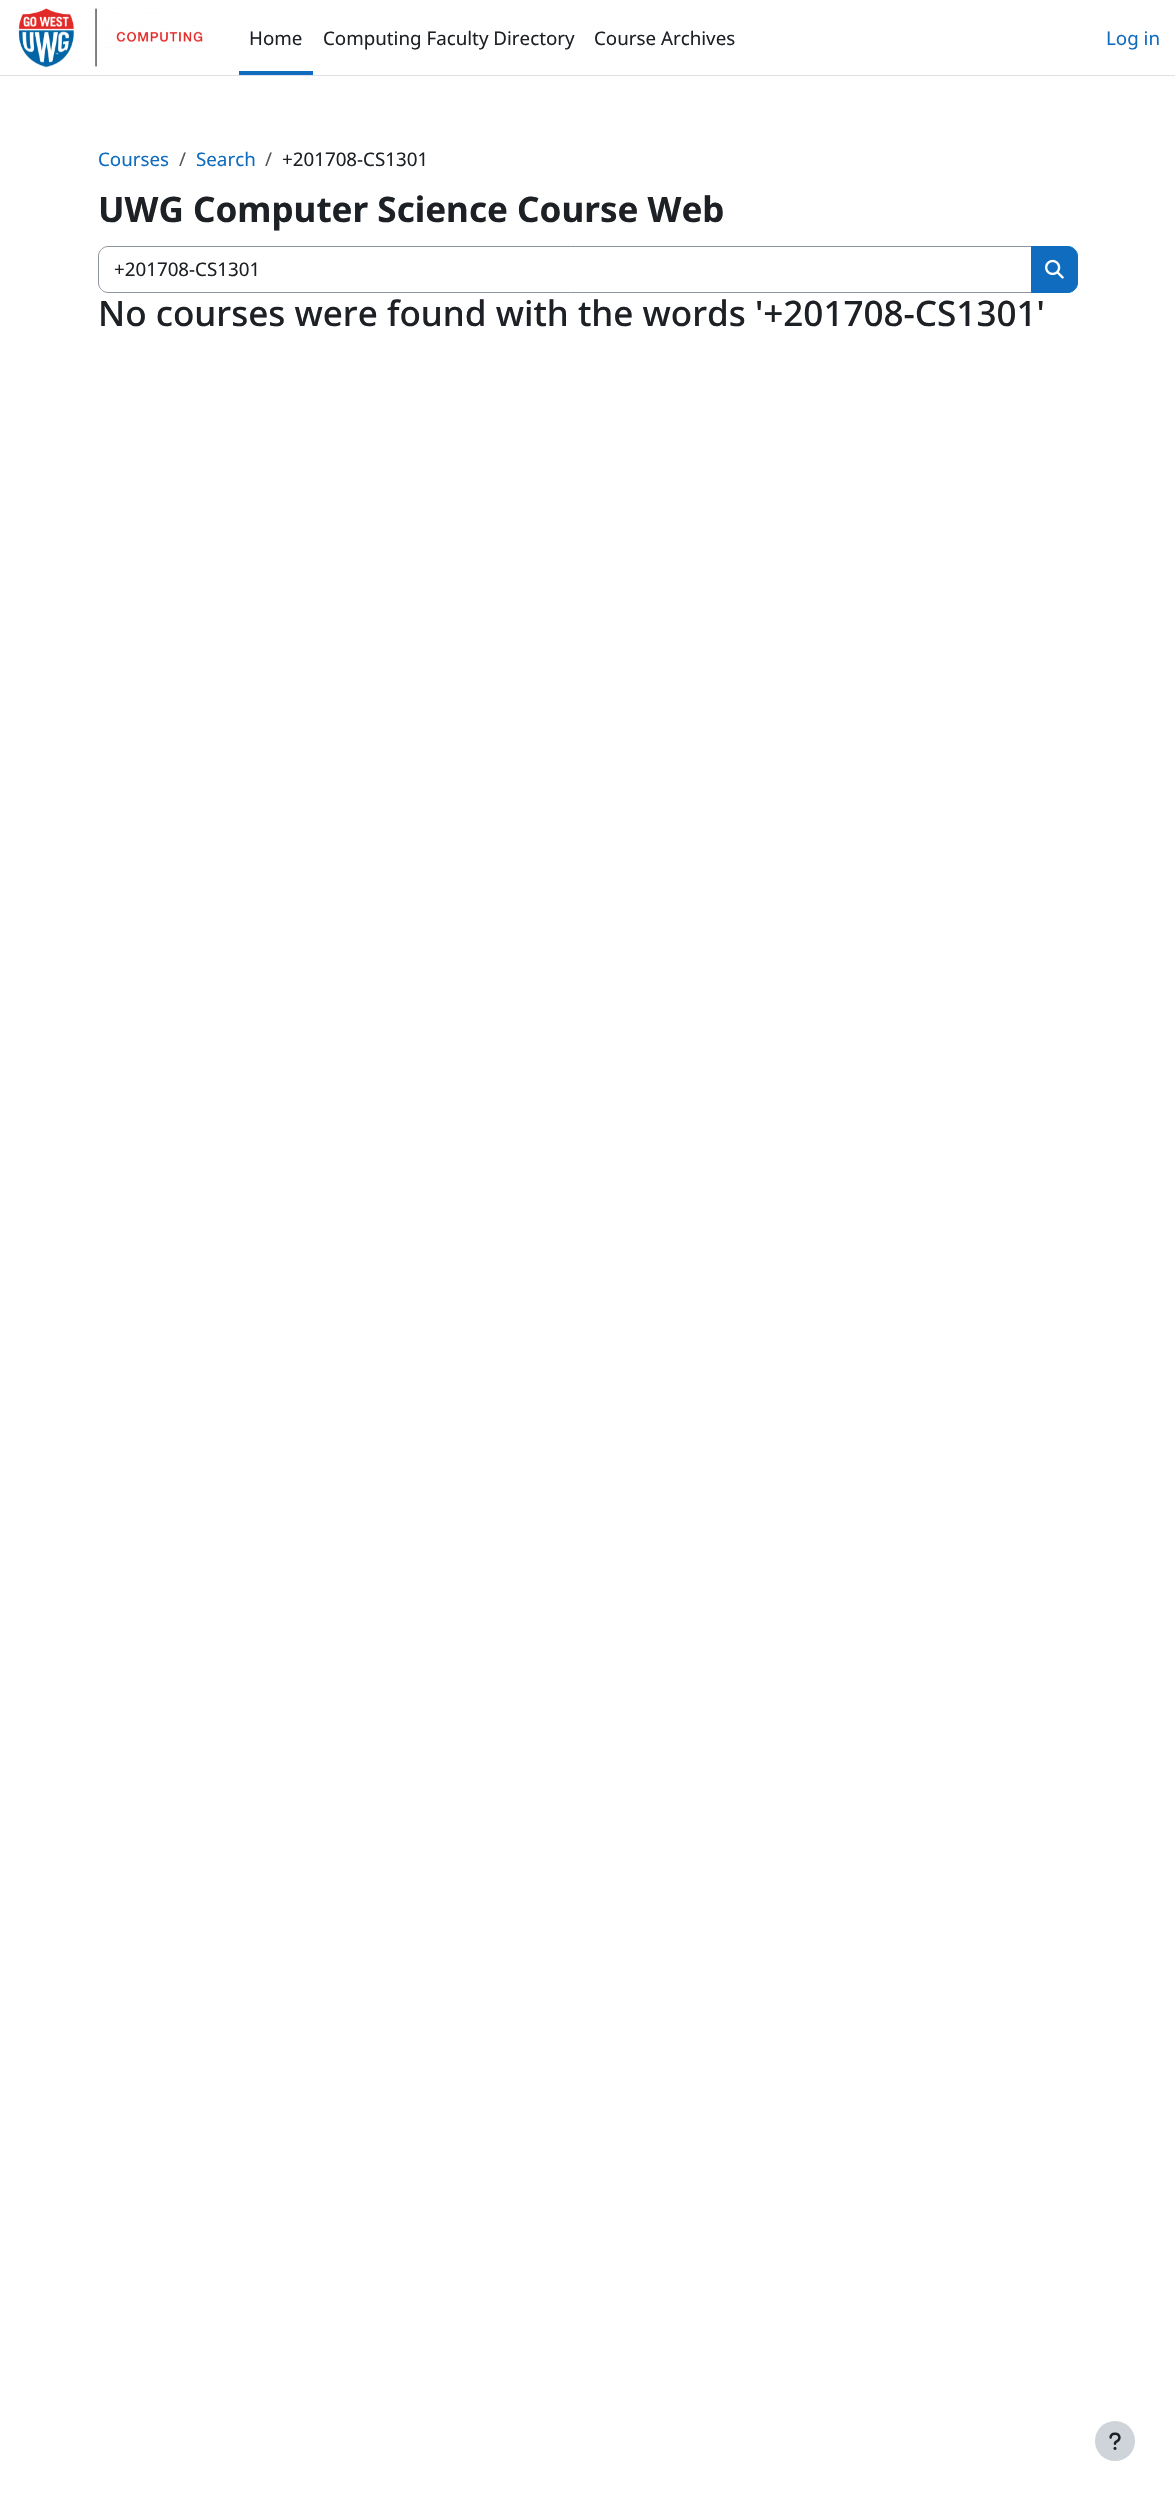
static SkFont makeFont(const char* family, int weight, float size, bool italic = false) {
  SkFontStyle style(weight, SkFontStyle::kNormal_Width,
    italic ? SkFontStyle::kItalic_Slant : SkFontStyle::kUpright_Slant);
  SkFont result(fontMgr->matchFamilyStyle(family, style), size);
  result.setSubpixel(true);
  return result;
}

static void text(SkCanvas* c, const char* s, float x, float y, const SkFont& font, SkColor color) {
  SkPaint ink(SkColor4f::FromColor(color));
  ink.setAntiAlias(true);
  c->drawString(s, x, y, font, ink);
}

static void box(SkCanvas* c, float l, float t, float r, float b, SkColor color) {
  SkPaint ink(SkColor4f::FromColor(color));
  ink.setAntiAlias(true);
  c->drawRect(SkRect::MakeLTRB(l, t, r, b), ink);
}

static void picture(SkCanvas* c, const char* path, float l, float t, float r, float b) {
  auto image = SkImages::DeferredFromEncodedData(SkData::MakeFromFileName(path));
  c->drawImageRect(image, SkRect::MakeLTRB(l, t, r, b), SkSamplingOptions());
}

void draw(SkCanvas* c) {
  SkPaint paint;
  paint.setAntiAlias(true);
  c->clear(0xffffffff);
  box(c, 0, 75, 1175, 76, 0xffdee2e6);
  picture(c, "img_01.png", 18, 8, 203, 68);
  box(c, 239, 71, 313, 75, 0xff0f6cbf);
  SkFont face1 = makeFont("Noto Sans", 400, 18.75f);
  text(c, "Home", 249, 45, face1, 0xff1d2125);
  text(c, "Computing Faculty Directory", 323, 45, face1, 0xff1d2125);
  text(c, "Course Archives", 594, 45, face1, 0xff1d2125);
  text(c, "Log in", 1106, 45, face1, 0xff0f6cbf);
  text(c, "Courses", 98, 166, face1, 0xff0f6cbf);
  text(c, "/", 179, 166, face1, 0xff56595c);
  text(c, "Search", 196, 166, face1, 0xff0f6cbf);
  text(c, "/", 265, 166, face1, 0xff56595c);
  text(c, "+201708-CS1301", 282, 166, face1, 0xff1d2125);
  SkFont face2 = makeFont("Noto Sans", 700, 35.05f);
  text(c, "UWG Computer Science Course Web", 98, 222, face2, 0xff1d2125);
  paint.setStyle(SkPaint::kStroke_Style);
  paint.setStrokeWidth(1);
  paint.setColor(0xff8f959e);
  c->drawPath(SkPathBuilder().moveTo(108, 246.5f).lineTo(1033.5f, 246.5f).lineTo(1033.5f, 292.5f).lineTo(108, 292.5f).cubicTo(103, 292.5f, 98.5f, 288, 98.5f, 283).lineTo(98.5f, 256).cubicTo(98.5f, 251, 103, 246.5f, 108, 246.5f).close().detach(), paint);
  text(c, "+201708-CS1301", 114, 276, face1, 0xff1d2125);
  paint.setStyle(SkPaint::kFill_Style);
  paint.setColor(0xff0f6cbf);
  c->drawPath(SkPathBuilder().moveTo(1031.5f, 246.5f).lineTo(1068, 246.5f).cubicTo(1073, 246.5f, 1077.5f, 251, 1077.5f, 256).lineTo(1077.5f, 283).cubicTo(1077.5f, 288, 1073, 292.5f, 1068, 292.5f).lineTo(1031.5f, 292.5f).close().detach(), paint);
  paint.setStyle(SkPaint::kStroke_Style);
  c->drawPath(SkPathBuilder().moveTo(1031.5f, 246.5f).lineTo(1068, 246.5f).cubicTo(1073, 246.5f, 1077.5f, 251, 1077.5f, 256).lineTo(1077.5f, 283).cubicTo(1077.5f, 288, 1073, 292.5f, 1068, 292.5f).lineTo(1031.5f, 292.5f).close().detach(), paint);
  picture(c, "img_02.png", 1045, 259, 1064, 279);
  SkFont face3 = makeFont("Noto Sans", 500, 35.05f);
  text(c, "No courses were found with the words '+201708-CS1301'", 98, 326, face3, 0xff1d2125);
  paint.setStyle(SkPaint::kFill_Style);
  paint.setColor(0xffced4da);
  c->drawCircle(1115, 2441, 20, paint);
  picture(c, "img_03.png", 1109, 2432, 1121, 2450);
}
